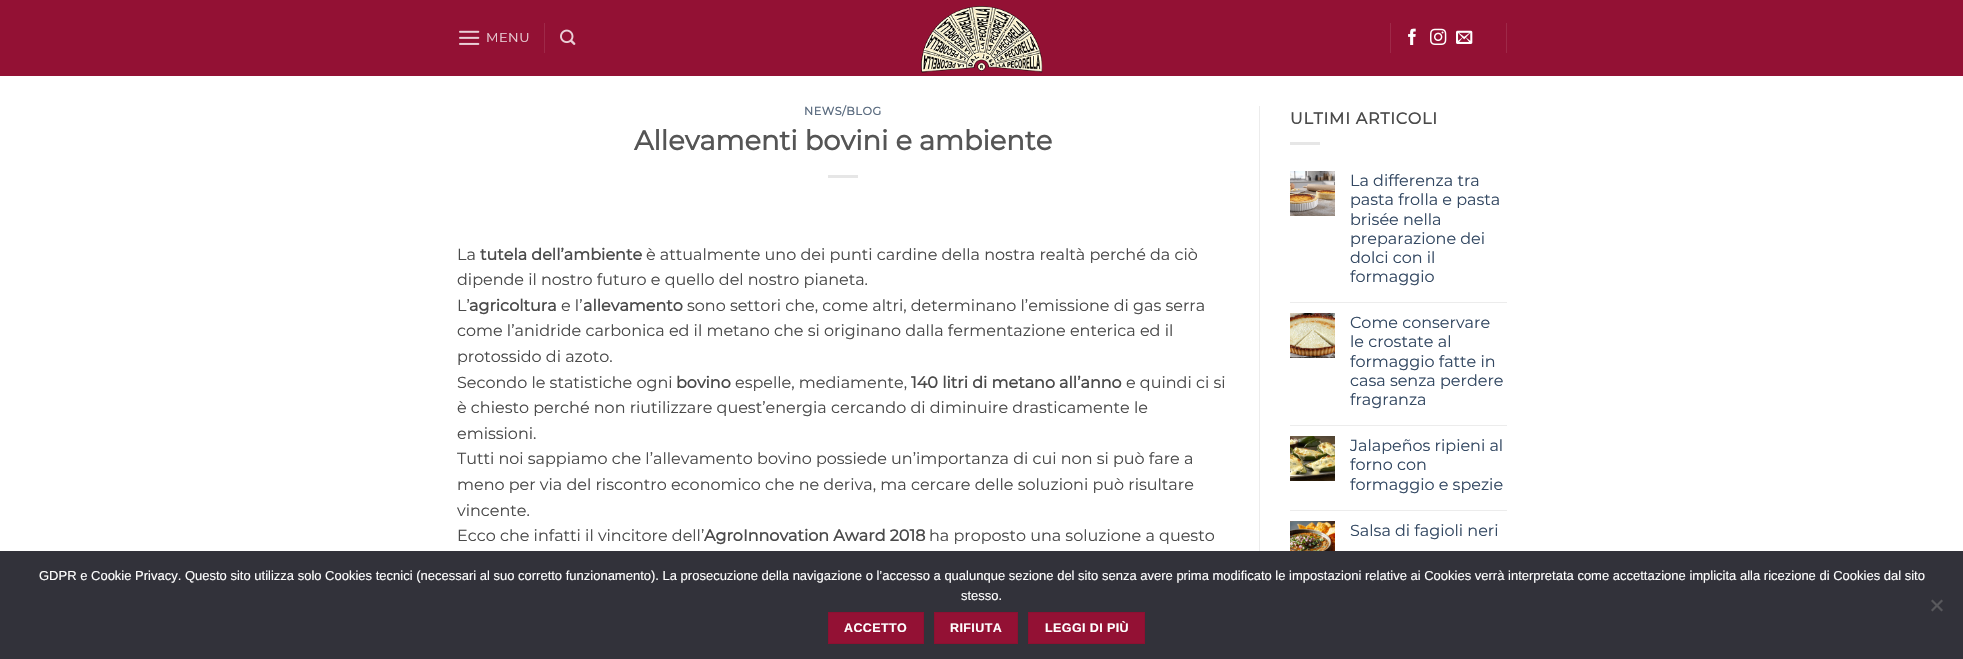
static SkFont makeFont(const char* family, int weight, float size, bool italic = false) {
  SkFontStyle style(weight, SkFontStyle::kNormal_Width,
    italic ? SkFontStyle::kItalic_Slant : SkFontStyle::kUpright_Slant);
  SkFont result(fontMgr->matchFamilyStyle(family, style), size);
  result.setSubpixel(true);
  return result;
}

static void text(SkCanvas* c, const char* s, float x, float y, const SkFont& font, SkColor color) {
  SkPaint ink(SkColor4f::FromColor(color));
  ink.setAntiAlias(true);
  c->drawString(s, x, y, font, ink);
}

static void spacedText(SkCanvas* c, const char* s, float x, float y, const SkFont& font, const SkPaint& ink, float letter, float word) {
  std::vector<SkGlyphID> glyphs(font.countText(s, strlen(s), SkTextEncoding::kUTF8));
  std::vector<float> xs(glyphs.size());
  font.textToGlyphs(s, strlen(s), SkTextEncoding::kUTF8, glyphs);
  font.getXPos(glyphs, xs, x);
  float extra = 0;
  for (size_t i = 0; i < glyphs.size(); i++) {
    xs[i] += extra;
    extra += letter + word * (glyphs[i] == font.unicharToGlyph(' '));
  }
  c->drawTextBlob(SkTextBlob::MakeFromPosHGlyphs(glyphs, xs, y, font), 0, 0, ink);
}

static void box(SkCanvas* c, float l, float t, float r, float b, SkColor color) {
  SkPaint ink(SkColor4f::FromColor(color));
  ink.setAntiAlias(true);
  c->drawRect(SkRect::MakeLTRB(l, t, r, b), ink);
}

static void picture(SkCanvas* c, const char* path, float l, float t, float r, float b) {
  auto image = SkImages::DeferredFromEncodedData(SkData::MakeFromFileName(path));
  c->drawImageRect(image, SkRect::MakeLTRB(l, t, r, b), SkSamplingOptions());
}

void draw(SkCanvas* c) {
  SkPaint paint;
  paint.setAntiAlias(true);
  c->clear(0xffffffff);
  box(c, 0, 0, 1963, 76, 0xff931134);
  picture(c, "img_01.png", 459, 30, 480, 45);
  SkFont face1 = makeFont("Montserrat", 100, 13);
  paint.setColor(0xffe9cfd6);
  spacedText(c, "MENU", 486, 42, face1, paint, 0.5f, 0);
  box(c, 544, 23, 545, 53, 0xff9e2948);
  picture(c, "img_02.png", 560, 29, 576, 45);
  picture(c, "img_03.png", 920, 6, 1043, 73);
  box(c, 1390, 23, 1391, 53, 0xff9e2948);
  picture(c, "img_04.png", 1408, 28, 1416, 45);
  picture(c, "img_05.png", 1430, 28, 1447, 45);
  picture(c, "img_06.png", 1456, 30, 1473, 44);
  box(c, 1506, 23, 1507, 53, 0xff9e2948);
  SkFont face2 = makeFont("Montserrat", 700, 11.25f);
  paint.setColor(0xff5c6d81);
  spacedText(c, "NEWS/BLOG", 804, 115, face2, paint, 0.5f, 0);
  SkFont face3 = makeFont("Montserrat", 700, 27.25f);
  text(c, "Allevamenti bovini e ambiente", 634, 150, face3, 0xff555555);
  box(c, 828, 175, 858, 178, 0xffe6e6e6);
  SkFont face4 = makeFont("Montserrat", 100, 16);
  text(c, "La", 457, 260, face4, 0xff4a4a4a);
  SkFont face5 = makeFont("Montserrat", 700, 16);
  text(c, "tutela dell’ambiente", 480, 260, face5, 0xff4a4a4a);
  text(c, "è attualmente uno dei punti cardine della nostra realtà perché da ciò", 646, 260, face4, 0xff4a4a4a);
  text(c, "dipende il nostro futuro e quello del nostro pianeta.", 457, 285, face4, 0xff4a4a4a);
  text(c, "L’", 457, 311, face4, 0xff4a4a4a);
  text(c, "agricoltura", 469, 311, face5, 0xff4a4a4a);
  text(c, "e l’", 561, 311, face4, 0xff4a4a4a);
  text(c, "allevamento", 583, 311, face5, 0xff4a4a4a);
  text(c, "sono settori che, come altri, determinano l’emissione di gas serra", 687, 311, face4, 0xff4a4a4a);
  text(c, "come l’anidride carbonica ed il metano che si originano dalla fermentazione enterica ed il", 457, 336, face4, 0xff4a4a4a);
  text(c, "protossido di azoto.", 457, 362, face4, 0xff4a4a4a);
  text(c, "Secondo le statistiche ogni", 457, 388, face4, 0xff4a4a4a);
  text(c, "bovino", 676, 388, face5, 0xff4a4a4a);
  text(c, "espelle, mediamente,", 735, 388, face4, 0xff4a4a4a);
  text(c, "140 litri di metano all’anno", 911, 388, face5, 0xff4a4a4a);
  text(c, "e quindi ci si", 1126, 388, face4, 0xff4a4a4a);
  text(c, "è chiesto perché non riutilizzare quest’energia cercando di diminuire drasticamente le", 457, 413, face4, 0xff4a4a4a);
  text(c, "emissioni.", 457, 439, face4, 0xff4a4a4a);
  text(c, "Tutti noi sappiamo che l’allevamento bovino possiede un’importanza di cui non si può fare a", 457, 464, face4, 0xff4a4a4a);
  text(c, "meno per via del riscontro economico che ne deriva, ma cercare delle soluzioni può risultare", 457, 490, face4, 0xff4a4a4a);
  text(c, "vincente.", 457, 516, face4, 0xff4a4a4a);
  text(c, "Ecco che infatti il vincitore dell’", 457, 541, face4, 0xff4a4a4a);
  text(c, "AgroInnovation Award 2018", 704, 541, face5, 0xff4a4a4a);
  text(c, "ha proposto una soluzione a questo", 929, 541, face4, 0xff4a4a4a);
  box(c, 1259, 106, 1260, 551, 0xffececec);
  paint.setColor(0xff4a4a4a);
  spacedText(c, "ULTIMI ARTICOLI", 1290, 124, face5, paint, 0.75f, 0);
  box(c, 1290, 142, 1320, 145, 0xffe6e6e6);
  picture(c, "img_07.png", 1290, 171, 1335, 216);
  text(c, "La differenza tra", 1350, 186, face4, 0xff334862);
  text(c, "pasta frolla e pasta", 1350, 205, face4, 0xff334862);
  text(c, "brisée nella", 1350, 225, face4, 0xff334862);
  text(c, "preparazione dei", 1350, 244, face4, 0xff334862);
  text(c, "dolci con il", 1350, 263, face4, 0xff334862);
  text(c, "formaggio", 1350, 282, face4, 0xff334862);
  box(c, 1290, 302, 1507, 303, 0xffececec);
  picture(c, "img_08.png", 1290, 313, 1335, 358);
  text(c, "Come conservare", 1350, 328, face4, 0xff334862);
  text(c, "le crostate al", 1350, 347, face4, 0xff334862);
  text(c, "formaggio fatte in", 1350, 367, face4, 0xff334862);
  text(c, "casa senza perdere", 1350, 386, face4, 0xff334862);
  text(c, "fragranza", 1350, 405, face4, 0xff334862);
  box(c, 1290, 425, 1507, 426, 0xffececec);
  picture(c, "img_09.png", 1290, 436, 1335, 481);
  text(c, "Jalapeños ripieni al", 1350, 451, face4, 0xff334862);
  text(c, "forno con", 1350, 470, face4, 0xff334862);
  text(c, "formaggio e spezie", 1350, 490, face4, 0xff334862);
  box(c, 1290, 510, 1507, 511, 0xffececec);
  picture(c, "img_10.png", 1290, 521, 1335, 551);
  text(c, "Salsa di fagioli neri", 1350, 536, face4, 0xff334862);
  box(c, 0, 551, 1963, 659, 0xff32323a);
  SkFont face6 = makeFont("Liberation Sans", 400, 13);
  text(c, "GDPR e Cookie Privacy. Questo sito utilizza solo Cookies tecnici (necessari al suo corretto funzionamento). La prosecuzione della navigazione o l’accesso a qualunque sezione del sito senza avere prima modificato le impostazioni relative ai Cookies verrà interpretata come accettazione implicita alla ricezione di Cookies dal sito", 39, 580, face6, 0xffffffff);
  text(c, "stesso.", 961, 600, face6, 0xffffffff);
  paint.setColor(0xff59595d);
  c->drawPath(SkPathBuilder().moveTo(1941.5f, 599.5f).lineTo(1943, 601).lineTo(1932.5f, 611.5f).lineTo(1931, 610).close().detach(), paint);
  c->drawPath(SkPathBuilder().moveTo(1931, 601).lineTo(1932.5f, 599.5f).lineTo(1943, 610).lineTo(1941.5f, 611.5f).close().detach(), paint);
  paint.setColor(0xff931134);
  c->drawRect(SkRect::MakeLTRB(828.5f, 612.5f, 923.5f, 643.5f), paint);
  paint.setStyle(SkPaint::kStroke_Style);
  paint.setStrokeWidth(1);
  paint.setColor(0xff8c1031);
  c->drawRect(SkRect::MakeLTRB(828.5f, 612.5f, 923.5f, 643.5f), paint);
  SkFont face7 = makeFont("Liberation Sans", 700, 12.5f);
  paint.setStyle(SkPaint::kFill_Style);
  paint.setColor(0xffffffff);
  spacedText(c, "ACCETTO", 844, 632, face7, paint, 0.4f, 0);
  paint.setColor(0xff931134);
  c->drawRect(SkRect::MakeLTRB(934.5f, 612.5f, 1017.5f, 643.5f), paint);
  paint.setStyle(SkPaint::kStroke_Style);
  paint.setColor(0xff8c1031);
  c->drawRect(SkRect::MakeLTRB(934.5f, 612.5f, 1017.5f, 643.5f), paint);
  paint.setStyle(SkPaint::kFill_Style);
  paint.setColor(0xffffffff);
  spacedText(c, "RIFIUTA", 950, 632, face7, paint, 0.4f, 0);
  paint.setColor(0xff931134);
  c->drawRect(SkRect::MakeLTRB(1028.5f, 612.5f, 1144.5f, 643.5f), paint);
  paint.setStyle(SkPaint::kStroke_Style);
  paint.setColor(0xff8c1031);
  c->drawRect(SkRect::MakeLTRB(1028.5f, 612.5f, 1144.5f, 643.5f), paint);
  paint.setStyle(SkPaint::kFill_Style);
  paint.setColor(0xffffffff);
  spacedText(c, "LEGGI DI PIÙ", 1045, 632, face7, paint, 0.4f, 0);
}
